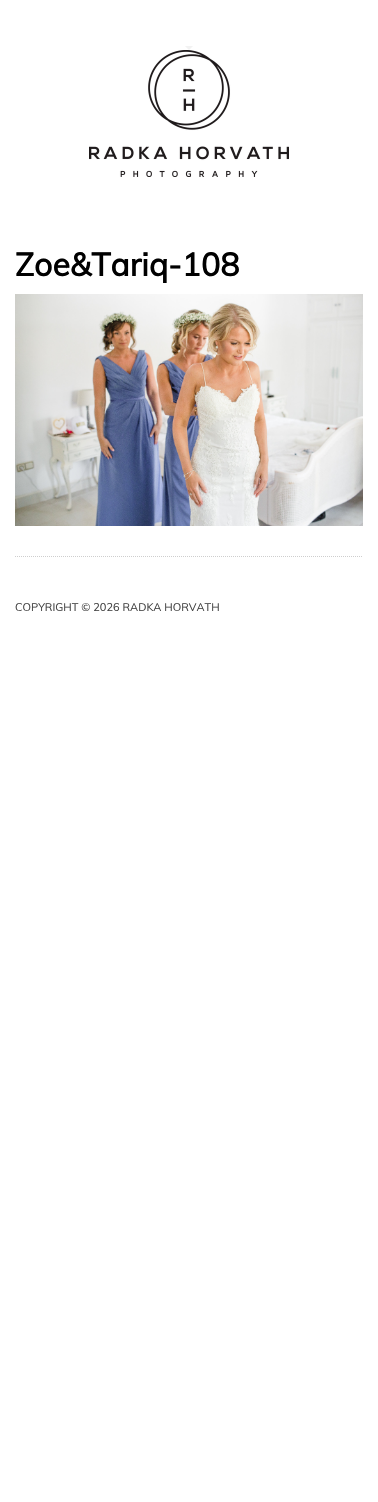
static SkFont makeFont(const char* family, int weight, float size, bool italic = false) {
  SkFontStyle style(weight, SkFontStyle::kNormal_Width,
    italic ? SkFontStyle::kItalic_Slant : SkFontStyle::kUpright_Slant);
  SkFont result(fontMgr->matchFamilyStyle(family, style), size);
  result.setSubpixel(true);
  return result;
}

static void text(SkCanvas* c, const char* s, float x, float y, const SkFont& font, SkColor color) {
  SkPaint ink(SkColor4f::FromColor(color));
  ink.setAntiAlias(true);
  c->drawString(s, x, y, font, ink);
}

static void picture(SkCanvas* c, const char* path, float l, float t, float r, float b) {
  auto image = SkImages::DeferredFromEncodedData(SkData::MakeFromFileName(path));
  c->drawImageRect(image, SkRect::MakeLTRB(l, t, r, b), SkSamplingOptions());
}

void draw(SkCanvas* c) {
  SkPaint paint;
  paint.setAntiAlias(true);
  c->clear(0xffffffff);
  paint.setColor(0xfff2f2f2);
  c->drawPath(SkPathBuilder().moveTo(185, 46).lineTo(193, 46).lineTo(189, 50).close().detach(), paint);
  picture(c, "img_01.png", 89, 50, 289, 177);
  SkFont face1 = makeFont("Muli", 700, 32);
  text(c, "Zoe&Tariq-108", 15, 276, face1, 0xff000000);
  picture(c, "img_02.png", 15, 294, 363, 526);
  paint.setStyle(SkPaint::kStroke_Style);
  paint.setStrokeWidth(1);
  paint.setColor(0xffcecece);
  paint.setPathEffect(SkDashPathEffect::Make({{1, 1}}, 0));
  c->drawPath(SkPathBuilder().moveTo(15, 556.5f).lineTo(363, 556.5f).detach(), paint);
  paint.setPathEffect(nullptr);
  SkFont face2 = makeFont("Muli", 400, 11);
  text(c, "COPYRIGHT © 2026 RADKA HORVATH", 15, 611, face2, 0xff444444);
}
